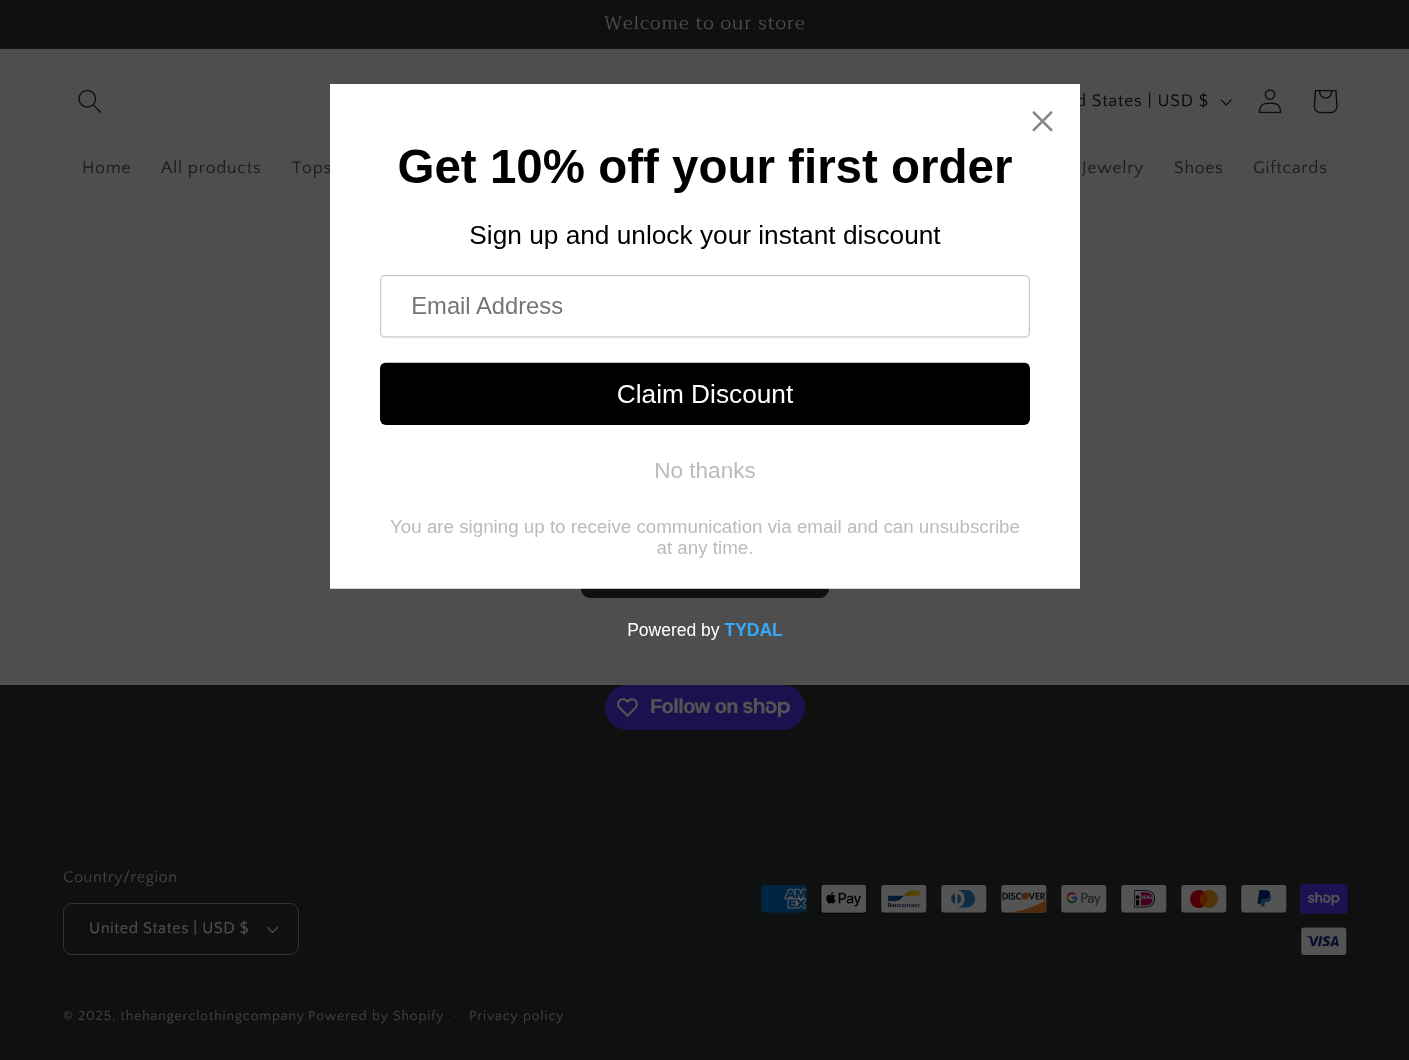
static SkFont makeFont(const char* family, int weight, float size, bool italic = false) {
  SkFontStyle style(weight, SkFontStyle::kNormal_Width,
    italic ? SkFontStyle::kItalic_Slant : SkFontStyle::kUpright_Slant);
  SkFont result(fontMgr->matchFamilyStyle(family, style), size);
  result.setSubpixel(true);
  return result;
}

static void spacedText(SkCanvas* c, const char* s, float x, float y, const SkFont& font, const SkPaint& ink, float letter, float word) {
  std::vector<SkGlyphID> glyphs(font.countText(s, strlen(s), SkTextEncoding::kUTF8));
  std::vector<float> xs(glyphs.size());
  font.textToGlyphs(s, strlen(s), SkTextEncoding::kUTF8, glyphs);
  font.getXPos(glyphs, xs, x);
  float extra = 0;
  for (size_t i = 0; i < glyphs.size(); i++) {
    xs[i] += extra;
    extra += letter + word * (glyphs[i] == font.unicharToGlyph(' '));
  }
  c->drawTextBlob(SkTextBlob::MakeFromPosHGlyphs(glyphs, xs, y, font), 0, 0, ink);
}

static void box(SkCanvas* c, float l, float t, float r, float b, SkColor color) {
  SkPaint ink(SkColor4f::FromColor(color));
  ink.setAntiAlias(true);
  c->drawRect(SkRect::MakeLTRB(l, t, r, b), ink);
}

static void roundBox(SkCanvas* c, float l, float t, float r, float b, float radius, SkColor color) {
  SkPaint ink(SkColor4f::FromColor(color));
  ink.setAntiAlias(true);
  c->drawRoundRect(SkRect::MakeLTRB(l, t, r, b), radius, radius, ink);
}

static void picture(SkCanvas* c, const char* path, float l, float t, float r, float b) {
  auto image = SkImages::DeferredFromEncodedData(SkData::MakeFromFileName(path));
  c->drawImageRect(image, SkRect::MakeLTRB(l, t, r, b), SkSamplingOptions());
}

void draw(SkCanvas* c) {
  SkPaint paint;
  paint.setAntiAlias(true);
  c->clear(0xffefecec);
  box(c, 0, 0, 1409, 48, 0xff2c332f);
  box(c, 0, 48, 1409, 49, 0xff3c423e);
  SkFont face1 = makeFont("Trirong", 300, 17.9f);
  paint.setColor(0xffefecec);
  spacedText(c, "Welcome to our store", 604, 29, face1, paint, 1.25f, 0);
  picture(c, "img_02.png", 78, 89, 102, 113);
  SkFont face2 = makeFont("Quattrocento Sans", 400, 17.5f);
  paint.setColor(0xff252525);
  spacedText(c, "d States | USD $", 1076, 106, face2, paint, 0.75f, 0);
  picture(c, "img_03.png", 1220, 99, 1232, 106);
  picture(c, "img_04.png", 1258, 89, 1282, 114);
  picture(c, "img_05.png", 1313, 90, 1338, 114);
  paint.setColor(0xff585757);
  spacedText(c, "Home", 82, 173, face2, paint, 0.75f, 0);
  spacedText(c, "All products", 161, 173, face2, paint, 0.75f, 0);
  spacedText(c, "Tops", 292, 173, face2, paint, 0.75f, 0);
  spacedText(c, "Jewelry", 1082, 173, face2, paint, 0.75f, 0);
  spacedText(c, "Shoes", 1174, 173, face2, paint, 0.75f, 0);
  spacedText(c, "Giftcards", 1253, 173, face2, paint, 0.75f, 0);
  paint.setColor(0xff2c332f);
  c->drawRoundRect(SkRect::MakeLTRB(581.5f, 539.5f, 828.5f, 597.5f), 8.5f, 8.5f, paint);
  paint.setStyle(SkPaint::kStroke_Style);
  paint.setStrokeWidth(1);
  c->drawRoundRect(SkRect::MakeLTRB(581.5f, 539.5f, 828.5f, 597.5f), 8.5f, 8.5f, paint);
  box(c, 0, 685, 1409, 1060, 0xff2c332f);
  roundBox(c, 605, 685, 805, 730, 22.5f, 0xff5433eb);
  picture(c, "img_06.png", 617, 698, 638, 717);
  SkFont face3 = makeFont("Liberation Sans", 700, 20);
  paint.setStyle(SkPaint::kFill_Style);
  paint.setColor(0xffffffff);
  spacedText(c, "Follow on", 650, 713, face3, paint, -0.6f, 0);
  picture(c, "img_07.png", 743, 698, 790, 718);
  box(c, 0, 798, 1409, 799, 0xff3c423e);
  SkFont face4 = makeFont("Quattrocento Sans", 400, 16.25f);
  paint.setColor(0xffbebebd);
  spacedText(c, "Country/region", 63, 882, face4, paint, 0.5f, 0);
  picture(c, "img_08.png", 266, 926, 279, 934);
  paint.setStyle(SkPaint::kStroke_Style);
  paint.setColor(0xff979997);
  c->drawRoundRect(SkRect::MakeLTRB(63.5f, 903.5f, 298.5f, 954.5f), 8.5f, 8.5f, paint);
  paint.setStyle(SkPaint::kFill_Style);
  paint.setColor(0xffefecec);
  spacedText(c, "United States | USD $", 89, 933, face4, paint, 0.5f, 0);
  picture(c, "img_09.png", 761, 885, 807, 913);
  picture(c, "img_10.png", 820, 884, 868, 914);
  picture(c, "img_11.png", 881, 885, 927, 913);
  picture(c, "img_12.png", 941, 885, 987, 913);
  picture(c, "img_13.png", 1001, 885, 1047, 913);
  picture(c, "img_14.png", 1061, 885, 1107, 913);
  picture(c, "img_15.png", 1121, 885, 1167, 913);
  picture(c, "img_16.png", 1181, 885, 1227, 913);
  picture(c, "img_17.png", 1241, 885, 1287, 913);
  picture(c, "img_18.png", 1300, 884, 1348, 914);
  picture(c, "img_19.png", 1301, 927, 1347, 955);
  SkFont face5 = makeFont("Quattrocento Sans", 400, 13.75f);
  paint.setColor(0xffbebebd);
  spacedText(c, "© 2025, thehangerclothingcompany", 63, 1020, face5, paint, 0.9f, 0);
  spacedText(c, "Powered by Shopify", 308, 1020, face5, paint, 0.9f, 0);
  SkFont face6 = makeFont("Quattrocento Sans", 400, 15);
  spacedText(c, "·", 454, 1020, face6, paint, 0.9f, 0);
  spacedText(c, "Privacy policy", 469, 1020, face5, paint, 0.9f, 0);
  picture(c, "img_01.png", 0, 0, 1409, 1060);
}
